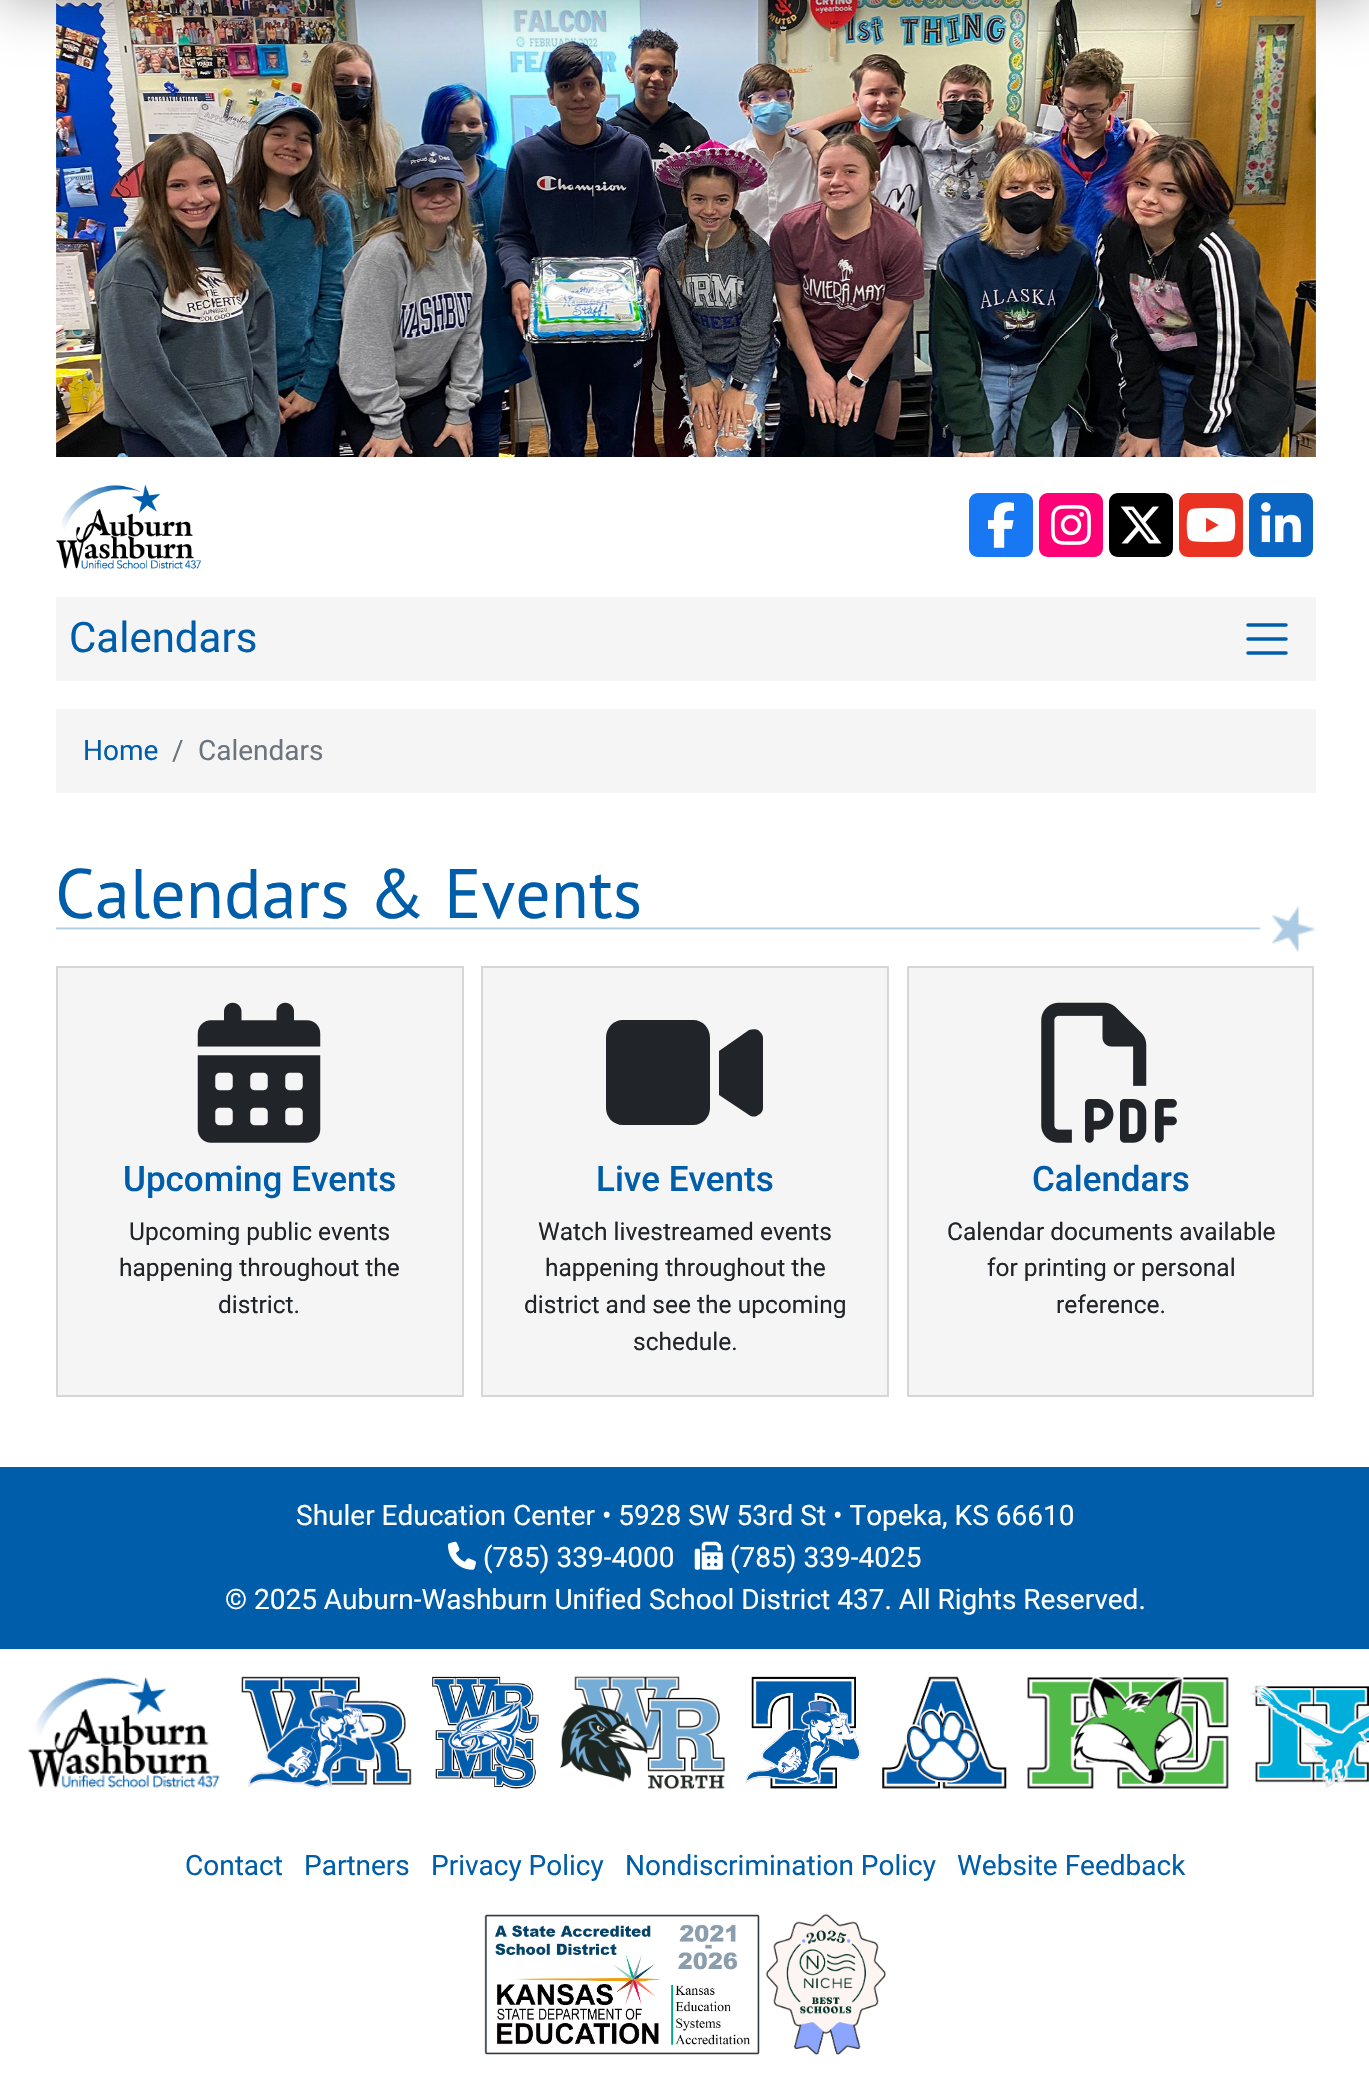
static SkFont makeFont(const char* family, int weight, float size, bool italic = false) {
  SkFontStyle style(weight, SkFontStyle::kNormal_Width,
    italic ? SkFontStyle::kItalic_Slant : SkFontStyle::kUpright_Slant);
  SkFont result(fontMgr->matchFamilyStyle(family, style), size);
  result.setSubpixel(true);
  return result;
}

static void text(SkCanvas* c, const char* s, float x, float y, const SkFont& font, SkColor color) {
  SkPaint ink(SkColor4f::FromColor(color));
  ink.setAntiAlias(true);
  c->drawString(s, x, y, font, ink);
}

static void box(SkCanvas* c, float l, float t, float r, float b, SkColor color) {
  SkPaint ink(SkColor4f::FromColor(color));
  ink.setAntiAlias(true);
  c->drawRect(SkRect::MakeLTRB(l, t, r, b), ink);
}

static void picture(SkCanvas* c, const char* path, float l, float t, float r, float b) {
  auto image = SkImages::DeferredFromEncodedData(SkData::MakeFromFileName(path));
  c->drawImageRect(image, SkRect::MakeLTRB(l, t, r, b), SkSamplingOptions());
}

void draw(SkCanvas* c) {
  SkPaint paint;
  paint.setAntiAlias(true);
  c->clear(0xffffffff);
  picture(c, "img_01.png", 56, 0, 1316, 457);
  paint.setColor(0x54000000);
  paint.setMaskFilter(SkMaskFilter::MakeBlur(kNormal_SkBlurStyle, 28));
  c->drawRect(SkRect::MakeLTRB(0, -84, 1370, 0), paint);
  paint.setMaskFilter(nullptr);
  picture(c, "img_02.png", 56, 484, 202, 569);
  paint.setColor(0xff1877f2);
  c->drawPath(SkPathBuilder().moveTo(969, 502).cubicTo(969, 497, 973, 493, 978, 493).lineTo(1024, 493).cubicTo(1029, 493, 1033, 497, 1033, 502).lineTo(1033, 548).cubicTo(1033, 553, 1029, 557, 1024, 557).lineTo(978, 557).cubicTo(973, 557, 969, 553, 969, 548).close().detach(), paint);
  picture(c, "img_03.png", 988, 502, 1014, 548);
  paint.setColor(0xffff0076);
  c->drawPath(SkPathBuilder().moveTo(1039, 502).cubicTo(1039, 497, 1043, 493, 1048, 493).lineTo(1094, 493).cubicTo(1099, 493, 1103, 497, 1103, 502).lineTo(1103, 548).cubicTo(1103, 553, 1099, 557, 1094, 557).lineTo(1048, 557).cubicTo(1043, 557, 1039, 553, 1039, 548).close().detach(), paint);
  picture(c, "img_04.png", 1051, 505, 1091, 545);
  paint.setColor(0xff000000);
  c->drawPath(SkPathBuilder().moveTo(1109, 502).cubicTo(1109, 497, 1113, 493, 1118, 493).lineTo(1164, 493).cubicTo(1169, 493, 1173, 497, 1173, 502).lineTo(1173, 548).cubicTo(1173, 553, 1169, 557, 1164, 557).lineTo(1118, 557).cubicTo(1113, 557, 1109, 553, 1109, 548).close().detach(), paint);
  picture(c, "img_05.png", 1120, 506, 1162, 544);
  paint.setColor(0xffea3223);
  c->drawPath(SkPathBuilder().moveTo(1179, 502).cubicTo(1179, 497, 1183, 493, 1188, 493).lineTo(1234, 493).cubicTo(1239, 493, 1243, 497, 1243, 502).lineTo(1243, 548).cubicTo(1243, 553, 1239, 557, 1234, 557).lineTo(1188, 557).cubicTo(1183, 557, 1179, 553, 1179, 548).close().detach(), paint);
  picture(c, "img_06.png", 1186, 507, 1236, 543);
  paint.setColor(0xff0a66c2);
  c->drawPath(SkPathBuilder().moveTo(1249, 502).cubicTo(1249, 497, 1253, 493, 1258, 493).lineTo(1304, 493).cubicTo(1309, 493, 1313, 497, 1313, 502).lineTo(1313, 548).cubicTo(1313, 553, 1309, 557, 1304, 557).lineTo(1258, 557).cubicTo(1253, 557, 1249, 553, 1249, 548).close().detach(), paint);
  picture(c, "img_07.png", 1261, 502, 1301, 543);
  box(c, 56, 597, 1316, 681, 0xfff5f5f5);
  SkFont face1 = makeFont("Roboto", 400, 42);
  text(c, "Calendars", 69, 652, face1, 0xff005daa);
  paint.setStyle(SkPaint::kStroke_Style);
  paint.setStrokeWidth(3.5f);
  paint.setStrokeCap(SkPaint::kRound_Cap);
  paint.setColor(0xff005daa);
  c->drawPath(SkPathBuilder().moveTo(1248, 625).lineTo(1286, 625).moveTo(1248, 639).lineTo(1286, 639).moveTo(1248, 653).lineTo(1286, 653).detach(), paint);
  box(c, 56, 709, 1316, 793, 0xfff5f5f5);
  SkFont face2 = makeFont("Roboto", 400, 28);
  text(c, "Home", 83, 760, face2, 0xff005daa);
  text(c, "/", 172, 760, face2, 0xff6c757d);
  text(c, "Calendars", 198, 760, face2, 0xff6c757d);
  picture(c, "img_08.png", 56, 906, 1316, 952);
  SkFont face3 = makeFont("PT Sans", 400, 70);
  text(c, "Calendars & Events", 55, 918, face3, 0xff005daa);
  paint.setStyle(SkPaint::kFill_Style);
  paint.setColor(0xfff5f5f5);
  c->drawRect(SkRect::MakeLTRB(57, 967, 463, 1396), paint);
  paint.setStyle(SkPaint::kStroke_Style);
  paint.setStrokeWidth(2);
  paint.setStrokeCap(SkPaint::kButt_Cap);
  paint.setColor(0xffd6d6d6);
  c->drawRect(SkRect::MakeLTRB(57, 967, 463, 1396), paint);
  picture(c, "img_09.png", 197, 1002, 321, 1143);
  SkFont face4 = makeFont("Roboto", 500, 35);
  text(c, "Upcoming Events", 123, 1191, face4, 0xff005daa);
  SkFont face5 = makeFont("Roboto", 400, 24.5f);
  text(c, "Upcoming public events", 129, 1240, face5, 0xff212529);
  text(c, "happening throughout the", 119, 1276, face5, 0xff212529);
  text(c, "district.", 218, 1313, face5, 0xff212529);
  paint.setStyle(SkPaint::kFill_Style);
  paint.setColor(0xfff5f5f5);
  c->drawRect(SkRect::MakeLTRB(482, 967, 888, 1396), paint);
  paint.setStyle(SkPaint::kStroke_Style);
  paint.setColor(0xffd6d6d6);
  c->drawRect(SkRect::MakeLTRB(482, 967, 888, 1396), paint);
  paint.setStyle(SkPaint::kFill_Style);
  paint.setColor(0xff212529);
  c->drawPath(SkPathBuilder().moveTo(606, 1038).cubicTo(606, 1028, 613, 1020, 623, 1020).lineTo(693, 1020).cubicTo(703, 1020, 710, 1028, 710, 1038).lineTo(710, 1108).cubicTo(710, 1117, 703, 1125, 693, 1125).lineTo(623, 1125).cubicTo(613, 1125, 606, 1117, 606, 1108).close().moveTo(758, 1030).cubicTo(761, 1032, 763, 1035, 763, 1038).lineTo(763, 1108).cubicTo(763, 1111, 761, 1114, 758, 1115).cubicTo(756, 1117, 752, 1117, 749, 1115).lineTo(719, 1095).lineTo(719, 1051).lineTo(749, 1030).cubicTo(752, 1029, 756, 1029, 758, 1030).close().detach(), paint);
  text(c, "Live Events", 596, 1191, face4, 0xff005daa);
  text(c, "Watch livestreamed events", 538, 1240, face5, 0xff212529);
  text(c, "happening throughout the", 545, 1276, face5, 0xff212529);
  text(c, "district and see the upcoming", 524, 1313, face5, 0xff212529);
  text(c, "schedule.", 633, 1350, face5, 0xff212529);
  paint.setColor(0xfff5f5f5);
  c->drawRect(SkRect::MakeLTRB(908, 967, 1313, 1396), paint);
  paint.setStyle(SkPaint::kStroke_Style);
  paint.setColor(0xffd6d6d6);
  c->drawRect(SkRect::MakeLTRB(908, 967, 1313, 1396), paint);
  picture(c, "img_10.png", 1041, 1002, 1177, 1143);
  text(c, "Calendars", 1032, 1191, face4, 0xff005daa);
  text(c, "Calendar documents available", 947, 1240, face5, 0xff212529);
  text(c, "for printing or personal", 987, 1276, face5, 0xff212529);
  text(c, "reference.", 1056, 1313, face5, 0xff212529);
  box(c, 0, 1467, 1369, 1649, 0xff005daa);
  text(c, "Shuler Education Center • 5928 SW 53rd St • Topeka, KS 66610", 296, 1525, face2, 0xffffffff);
  picture(c, "img_11.png", 448, 1541, 476, 1570);
  text(c, "(785) 339-4000", 483, 1567, face2, 0xffffffff);
  picture(c, "img_12.png", 694, 1541, 723, 1570);
  text(c, "(785) 339-4025", 730, 1567, face2, 0xffffffff);
  text(c, "© 2025 Auburn-Washburn Unified School District 437. All Rights Reserved.", 225, 1609, face2, 0xffffffff);
  picture(c, "img_13.png", 28, 1677, 220, 1788);
  picture(c, "img_14.png", 241, 1676, 412, 1789);
  picture(c, "img_15.png", 432, 1676, 539, 1789);
  picture(c, "img_16.png", 560, 1676, 725, 1789);
  picture(c, "img_17.png", 745, 1676, 861, 1789);
  picture(c, "img_18.png", 882, 1676, 1007, 1789);
  picture(c, "img_19.png", 1027, 1677, 1229, 1789);
  picture(c, "img_20.png", 1250, 1685, 1369, 1788);
  text(c, "Contact", 185, 1875, face2, 0xff005daa);
  text(c, "Partners", 304, 1875, face2, 0xff005daa);
  text(c, "Privacy Policy", 431, 1875, face2, 0xff005daa);
  text(c, "Nondiscrimination Policy", 625, 1875, face2, 0xff005daa);
  text(c, "Website Feedback", 957, 1875, face2, 0xff005daa);
  picture(c, "img_21.png", 484, 1914, 760, 2055);
  picture(c, "img_22.png", 766, 1914, 886, 2055);
}
